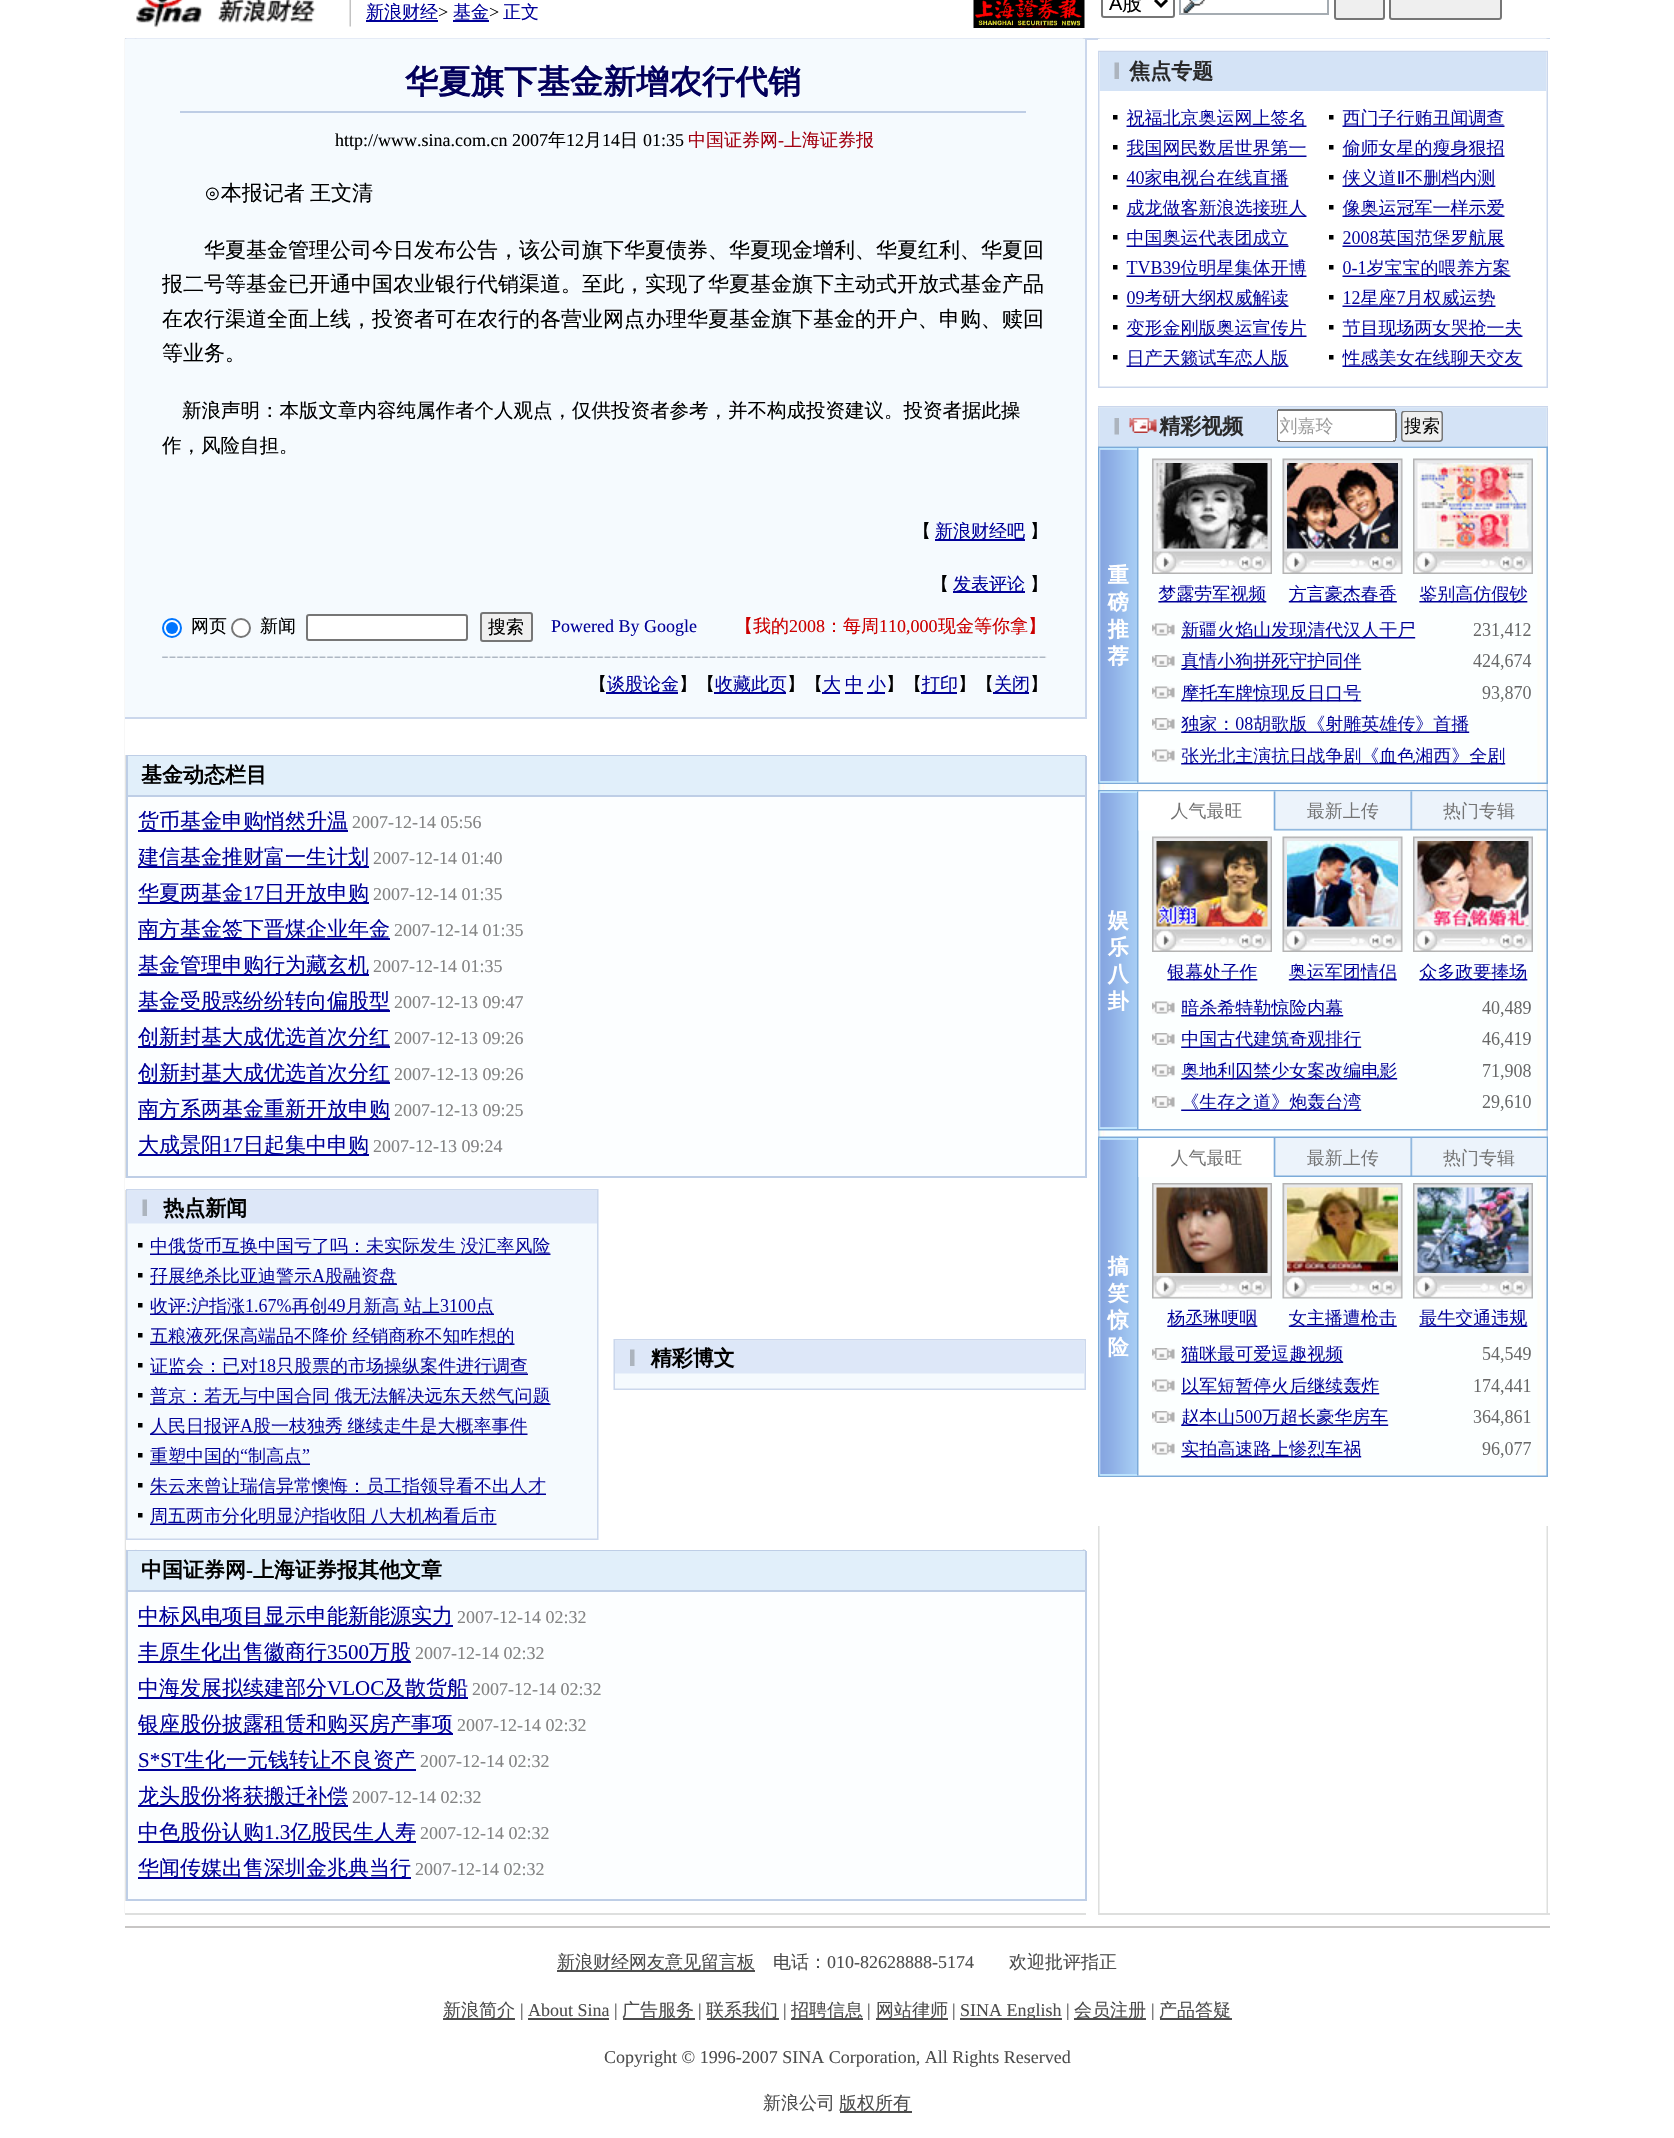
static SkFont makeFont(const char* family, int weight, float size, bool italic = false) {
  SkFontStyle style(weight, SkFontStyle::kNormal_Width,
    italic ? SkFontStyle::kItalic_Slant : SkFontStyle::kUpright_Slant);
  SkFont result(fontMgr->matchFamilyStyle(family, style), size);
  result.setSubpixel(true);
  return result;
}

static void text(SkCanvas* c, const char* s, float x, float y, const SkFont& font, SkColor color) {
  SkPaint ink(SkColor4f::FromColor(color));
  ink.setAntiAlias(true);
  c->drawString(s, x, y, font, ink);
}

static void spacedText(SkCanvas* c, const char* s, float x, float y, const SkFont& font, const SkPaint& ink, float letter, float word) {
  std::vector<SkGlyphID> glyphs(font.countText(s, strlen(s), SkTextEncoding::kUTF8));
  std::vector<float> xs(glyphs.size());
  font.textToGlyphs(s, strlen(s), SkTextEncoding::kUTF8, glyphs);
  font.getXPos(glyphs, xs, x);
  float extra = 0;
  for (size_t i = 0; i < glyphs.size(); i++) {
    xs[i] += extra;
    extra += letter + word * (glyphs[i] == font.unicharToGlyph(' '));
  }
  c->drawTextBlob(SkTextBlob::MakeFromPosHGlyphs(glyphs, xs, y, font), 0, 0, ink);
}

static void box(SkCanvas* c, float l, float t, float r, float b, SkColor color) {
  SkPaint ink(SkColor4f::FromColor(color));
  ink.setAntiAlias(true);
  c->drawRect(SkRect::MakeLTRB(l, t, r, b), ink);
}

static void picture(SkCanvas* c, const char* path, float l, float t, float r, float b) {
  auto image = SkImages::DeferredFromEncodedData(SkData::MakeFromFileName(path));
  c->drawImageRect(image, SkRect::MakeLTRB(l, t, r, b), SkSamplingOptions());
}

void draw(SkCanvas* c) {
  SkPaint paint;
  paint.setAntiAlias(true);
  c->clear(0xffffffff);
  picture(c, "img_01.png", 136, 0, 316, 28);
  picture(c, "img_02.png", 349, 0, 351, 27);
  box(c, 366, 20, 438, 22, 0xff000099);
  SkFont face1 = makeFont("WenQuanYi Zen Hei", 500, 18);
  text(c, "新浪财经", 366, 18, face1, 0xff000099);
  SkFont face2 = makeFont("Liberation Serif", 400, 18);
  text(c, ">", 438, 18, face2, 0xff000000);
  text(c, "基金", 453, 18, face1, 0xff000099);
  text(c, ">", 489, 18, face2, 0xff000000);
  box(c, 453, 20, 489, 22, 0xff000099);
  text(c, "正文", 503, 18, face1, 0xff000099);
  picture(c, "img_03.png", 973, 0, 1085, 28);
  paint.setStyle(SkPaint::kStroke_Style);
  paint.setStrokeWidth(2);
  paint.setColor(0xff767676);
  c->drawRoundRect(SkRect::MakeLTRB(1102, -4, 1174, 17), 2, 2, paint);
  paint.setStrokeWidth(3);
  paint.setColor(0xff000000);
  c->drawPath(SkPathBuilder().moveTo(1155, 0).lineTo(1161, 6).lineTo(1167, 0).detach(), paint);
  SkFont face3 = makeFont("Liberation Sans", 400, 20);
  text(c, "A", 1109, 10, face3, 0xff000000);
  SkFont face4 = makeFont("WenQuanYi Zen Hei", 500, 20);
  text(c, "股", 1122, 10, face4, 0xff000000);
  picture(c, "img_04.png", 1183, 0, 1205, 13);
  paint.setStrokeWidth(2);
  paint.setColor(0xffa5acb2);
  c->drawRect(SkRect::MakeLTRB(1180, -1, 1328, 14), paint);
  paint.setStyle(SkPaint::kFill_Style);
  paint.setColor(0xffefefef);
  c->drawRoundRect(SkRect::MakeLTRB(1335, -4, 1384, 19), 2, 2, paint);
  paint.setStyle(SkPaint::kStroke_Style);
  paint.setColor(0xff767676);
  c->drawRoundRect(SkRect::MakeLTRB(1335, -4, 1384, 19), 2, 2, paint);
  paint.setStyle(SkPaint::kFill_Style);
  paint.setColor(0xffefefef);
  c->drawRoundRect(SkRect::MakeLTRB(1390, -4, 1501, 19), 2, 2, paint);
  paint.setStyle(SkPaint::kStroke_Style);
  paint.setColor(0xff767676);
  c->drawRoundRect(SkRect::MakeLTRB(1390, -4, 1501, 19), 2, 2, paint);
  box(c, 125, 38, 1550, 40, 0xffcbd7ec);
  picture(c, "img_05.png", 124, 38, 1085, 1914);
  box(c, 125, 1913, 1086, 1915, 0xffdedfde);
  box(c, 125, 39, 1085, 717, 0xfff5fafe);
  box(c, 1085, 39, 1087, 719, 0xffcbd7ec);
  box(c, 125, 717, 1086, 719, 0xffcbd7ec);
  box(c, 180, 111, 1026, 113, 0xffbecde5);
  SkFont face5 = makeFont("WenQuanYi Zen Hei", 700, 33);
  text(c, "华夏旗下基金新增农行代销", 405, 93, face5, 0xff03005c);
  text(c, "http://www.sina.com.cn 2007", 335, 146, face2, 0xff000000);
  text(c, "年", 548, 146, face1, 0xff000000);
  text(c, "12", 566, 146, face2, 0xff000000);
  text(c, "月", 584, 146, face1, 0xff000000);
  text(c, "14", 602, 146, face2, 0xff000000);
  text(c, "日", 620, 146, face1, 0xff000000);
  text(c, "01:35", 643, 146, face2, 0xff000000);
  text(c, "中国证券网", 688, 146, face1, 0xffa20010);
  text(c, "-", 778, 146, face2, 0xffa20010);
  text(c, "上海证券报", 784, 146, face1, 0xffa20010);
  SkFont face6 = makeFont("WenQuanYi Zen Hei", 500, 21);
  paint.setStyle(SkPaint::kFill_Style);
  paint.setColor(0xff000000);
  spacedText(c, "⊙本报记者 王文清", 204, 200, face6, paint, 0, -1);
  text(c, "华夏基金管理公司今日发布公告，该公司旗下华夏债券、华夏现金增利、华夏红利、华夏回", 204, 257, face6, 0xff000000);
  text(c, "报二号等基金已开通中国农业银行代销渠道。至此，实现了华夏基金旗下主动式开放式基金产品", 162, 291, face6, 0xff000000);
  text(c, "在农行渠道全面上线，投资者可在农行的各营业网点办理华夏基金旗下基金的开户、申购、赎回", 162, 326, face6, 0xff000000);
  text(c, "等业务。", 162, 360, face6, 0xff000000);
  SkFont face7 = makeFont("WenQuanYi Zen Hei", 500, 19.5f);
  text(c, "新浪声明：本版文章内容纯属作者个人观点，仅供投资者参考，并不构成投资建议。投资者据此操", 182, 417, face7, 0xff000000);
  text(c, "作，风险自担。", 162, 452, face7, 0xff000000);
  text(c, "【", 913, 537, face1, 0xff000000);
  box(c, 935, 539, 1025, 541, 0xff000099);
  text(c, "新浪财经吧", 935, 537, face1, 0xff000099);
  text(c, "】", 1030, 537, face1, 0xff000000);
  text(c, "【", 931, 590, face1, 0xff000000);
  box(c, 953, 591, 1025, 593, 0xff000099);
  text(c, "发表评论", 953, 590, face1, 0xff000099);
  text(c, "】", 1030, 590, face1, 0xff000000);
  paint.setColor(0xffffffff);
  c->drawCircle(172, 628, 9, paint);
  paint.setStyle(SkPaint::kStroke_Style);
  paint.setColor(0xff0075ff);
  c->drawCircle(172, 628, 9, paint);
  paint.setStyle(SkPaint::kFill_Style);
  c->drawCircle(172, 628, 6, paint);
  text(c, "网页", 191, 632, face1, 0xff000000);
  paint.setColor(0xffffffff);
  c->drawCircle(241, 628, 9, paint);
  paint.setStyle(SkPaint::kStroke_Style);
  paint.setColor(0xff767676);
  c->drawCircle(241, 628, 9, paint);
  text(c, "新闻", 260, 632, face1, 0xff000000);
  paint.setStyle(SkPaint::kFill_Style);
  paint.setColor(0xffffffff);
  c->drawRoundRect(SkRect::MakeLTRB(307, 615, 467, 640), 2, 2, paint);
  paint.setStyle(SkPaint::kStroke_Style);
  paint.setColor(0xff767676);
  c->drawRoundRect(SkRect::MakeLTRB(307, 615, 467, 640), 2, 2, paint);
  paint.setStyle(SkPaint::kFill_Style);
  paint.setColor(0xffefefef);
  c->drawRoundRect(SkRect::MakeLTRB(481, 613, 532, 641), 2, 2, paint);
  paint.setStyle(SkPaint::kStroke_Style);
  paint.setColor(0xff767676);
  c->drawRoundRect(SkRect::MakeLTRB(481, 613, 532, 641), 2, 2, paint);
  text(c, "搜索", 488, 633, face1, 0xff000000);
  text(c, "Powered By Google", 551, 632, face2, 0xff000099);
  text(c, "【我的", 735, 632, face1, 0xffcc0000);
  text(c, "2008", 789, 632, face2, 0xffcc0000);
  text(c, "：每周", 825, 632, face1, 0xffcc0000);
  text(c, "110,000", 879, 632, face2, 0xffcc0000);
  text(c, "现金等你拿】", 938, 632, face1, 0xffcc0000);
  picture(c, "img_06.png", 162, 656, 1047, 658);
  text(c, "【", 589, 690, face1, 0xff000000);
  box(c, 606, 692, 678, 694, 0xff000099);
  text(c, "谈股论金", 607, 690, face1, 0xff000099);
  text(c, "】【", 679, 690, face1, 0xff000000);
  box(c, 714, 692, 786, 694, 0xff000099);
  text(c, "收藏此页", 715, 690, face1, 0xff000099);
  text(c, "】【", 787, 690, face1, 0xff000000);
  box(c, 822, 692, 840, 694, 0xff000099);
  text(c, "大", 823, 690, face1, 0xff000099);
  text(c, "中", 845, 690, face1, 0xff000099);
  box(c, 845, 692, 863, 694, 0xff000099);
  box(c, 867, 692, 885, 694, 0xff000099);
  text(c, "小", 868, 690, face1, 0xff000099);
  text(c, "】【", 886, 690, face1, 0xff000000);
  box(c, 921, 692, 957, 694, 0xff000099);
  text(c, "打印", 922, 690, face1, 0xff000099);
  text(c, "】【", 958, 690, face1, 0xff000000);
  box(c, 993, 692, 1029, 694, 0xff000099);
  text(c, "关闭", 994, 690, face1, 0xff000099);
  text(c, "】", 1030, 690, face1, 0xff000000);
  box(c, 125, 719, 1085, 755, 0xffffffff);
  box(c, 126, 755, 1086, 756, 0xffbecee6);
  box(c, 126, 755, 128, 1178, 0xffbecee6);
  box(c, 128, 756, 1085, 795, 0xffe1effa);
  box(c, 1085, 756, 1087, 1178, 0xffbecee6);
  box(c, 128, 795, 1086, 797, 0xffbecee6);
  SkFont face8 = makeFont("WenQuanYi Zen Hei", 700, 21);
  text(c, "基金动态栏目", 141, 782, face8, 0xff000000);
  box(c, 128, 797, 1085, 1176, 0xfffcfeff);
  box(c, 128, 1176, 1086, 1178, 0xffbecee6);
  box(c, 138, 830, 348, 832, 0xff000099);
  text(c, "货币基金申购悄然升温", 138, 828, face6, 0xff000099);
  text(c, "2007-12-14 05:56", 352, 828, face2, 0xff838383);
  box(c, 138, 866, 369, 868, 0xff000099);
  text(c, "建信基金推财富一生计划", 138, 864, face6, 0xff000099);
  text(c, "2007-12-14 01:40", 373, 864, face2, 0xff838383);
  box(c, 138, 902, 369, 904, 0xff000099);
  text(c, "华夏两基金", 138, 900, face6, 0xff000099);
  SkFont face9 = makeFont("Liberation Serif", 400, 21);
  text(c, "17", 243, 900, face9, 0xff000099);
  text(c, "日开放申购", 264, 900, face6, 0xff000099);
  text(c, "2007-12-14 01:35", 373, 900, face2, 0xff838383);
  box(c, 138, 938, 390, 940, 0xff000099);
  text(c, "南方基金签下晋煤企业年金", 138, 936, face6, 0xff000099);
  text(c, "2007-12-14 01:35", 394, 936, face2, 0xff838383);
  box(c, 138, 974, 369, 976, 0xff000099);
  text(c, "基金管理申购行为藏玄机", 138, 972, face6, 0xff000099);
  text(c, "2007-12-14 01:35", 373, 972, face2, 0xff838383);
  box(c, 138, 1010, 390, 1012, 0xff000099);
  text(c, "基金受股惑纷纷转向偏股型", 138, 1008, face6, 0xff000099);
  text(c, "2007-12-13 09:47", 394, 1008, face2, 0xff838383);
  box(c, 138, 1046, 390, 1048, 0xff000099);
  text(c, "创新封基大成优选首次分红", 138, 1044, face6, 0xff000099);
  text(c, "2007-12-13 09:26", 394, 1044, face2, 0xff838383);
  box(c, 138, 1082, 390, 1084, 0xff000099);
  text(c, "创新封基大成优选首次分红", 138, 1080, face6, 0xff000099);
  text(c, "2007-12-13 09:26", 394, 1080, face2, 0xff838383);
  box(c, 138, 1118, 390, 1120, 0xff000099);
  text(c, "南方系两基金重新开放申购", 138, 1116, face6, 0xff000099);
  text(c, "2007-12-13 09:25", 394, 1116, face2, 0xff838383);
  box(c, 138, 1154, 369, 1156, 0xff000099);
  text(c, "大成景阳", 138, 1152, face6, 0xff000099);
  text(c, "17", 222, 1152, face9, 0xff000099);
  text(c, "日起集中申购", 243, 1152, face6, 0xff000099);
  text(c, "2007-12-13 09:24", 373, 1152, face2, 0xff838383);
  box(c, 125, 1178, 1085, 1190, 0xffffffff);
  picture(c, "img_07.png", 126, 1189, 1086, 1549);
  box(c, 126, 1550, 1086, 1551, 0xffbecee6);
  box(c, 126, 1550, 128, 1901, 0xffbecee6);
  box(c, 128, 1551, 1085, 1590, 0xffe1effa);
  box(c, 1085, 1551, 1087, 1901, 0xffbecee6);
  box(c, 128, 1590, 1086, 1592, 0xffbecee6);
  text(c, "中国证券网", 141, 1577, face8, 0xff000000);
  SkFont face10 = makeFont("Liberation Serif", 700, 21);
  text(c, "-", 246, 1577, face10, 0xff000000);
  text(c, "上海证券报其他文章", 253, 1577, face8, 0xff000000);
  box(c, 128, 1592, 1085, 1899, 0xfffcfeff);
  box(c, 128, 1899, 1086, 1901, 0xffbecee6);
  box(c, 138, 1625, 453, 1627, 0xff000099);
  text(c, "中标风电项目显示申能新能源实力", 138, 1623, face6, 0xff000099);
  text(c, "2007-12-14 02:32", 457, 1623, face2, 0xff838383);
  box(c, 138, 1661, 411, 1663, 0xff000099);
  text(c, "丰原生化出售徽商行", 138, 1659, face6, 0xff000099);
  text(c, "3500", 327, 1659, face9, 0xff000099);
  text(c, "万股", 369, 1659, face6, 0xff000099);
  text(c, "2007-12-14 02:32", 415, 1659, face2, 0xff838383);
  box(c, 138, 1697, 468, 1699, 0xff000099);
  text(c, "中海发展拟续建部分", 138, 1695, face6, 0xff000099);
  text(c, "VLOC", 327, 1695, face9, 0xff000099);
  text(c, "及散货船", 384, 1695, face6, 0xff000099);
  text(c, "2007-12-14 02:32", 472, 1695, face2, 0xff838383);
  box(c, 138, 1733, 453, 1735, 0xff000099);
  text(c, "银座股份披露租赁和购买房产事项", 138, 1731, face6, 0xff000099);
  text(c, "2007-12-14 02:32", 457, 1731, face2, 0xff838383);
  text(c, "S*ST", 138, 1767, face9, 0xff000099);
  box(c, 138, 1769, 416, 1771, 0xff000099);
  text(c, "生化一元钱转让不良资产", 184, 1767, face6, 0xff000099);
  text(c, "2007-12-14 02:32", 420, 1767, face2, 0xff838383);
  box(c, 138, 1805, 348, 1807, 0xff000099);
  text(c, "龙头股份将获搬迁补偿", 138, 1803, face6, 0xff000099);
  text(c, "2007-12-14 02:32", 352, 1803, face2, 0xff838383);
  box(c, 138, 1841, 416, 1843, 0xff000099);
  text(c, "中色股份认购", 138, 1839, face6, 0xff000099);
  text(c, "1.3", 264, 1839, face9, 0xff000099);
  text(c, "亿股民生人寿", 290, 1839, face6, 0xff000099);
  text(c, "2007-12-14 02:32", 420, 1839, face2, 0xff838383);
  box(c, 138, 1877, 411, 1879, 0xff000099);
  text(c, "华闻传媒出售深圳金兆典当行", 138, 1875, face6, 0xff000099);
  text(c, "2007-12-14 02:32", 415, 1875, face2, 0xff838383);
  box(c, 125, 1901, 1085, 1913, 0xffffffff);
  picture(c, "img_08.png", 1098, 38, 1548, 1913);
  box(c, 1098, 1913, 1550, 1915, 0xffdedfde);
  box(c, 1098, 39, 1550, 1526, 0xffffffff);
  picture(c, "img_09.png", 1098, 50, 1548, 388);
  picture(c, "img_10.png", 1098, 406, 1548, 1477);
  box(c, 125, 1926, 1550, 1928, 0xffc8c6c5);
  box(c, 557, 1970, 755, 1972, 0xff4d4d4d);
  text(c, "新浪财经网友意见留言板", 557, 1968, face1, 0xff4d4d4d);
  text(c, "电话：", 773, 1968, face1, 0xff4d4d4d);
  text(c, "010-82628888-5174", 827, 1968, face2, 0xff4d4d4d);
  text(c, "欢迎批评指正", 1009, 1968, face1, 0xff4d4d4d);
  box(c, 443, 2018, 515, 2020, 0xff4d4d4d);
  text(c, "新浪简介", 443, 2016, face1, 0xff4d4d4d);
  text(c, "| About Sina |", 520, 2016, face2, 0xff4d4d4d);
  box(c, 623, 2018, 695, 2020, 0xff4d4d4d);
  text(c, "广告服务", 622, 2016, face1, 0xff4d4d4d);
  text(c, "|", 698, 2016, face2, 0xff4d4d4d);
  box(c, 707, 2018, 779, 2020, 0xff4d4d4d);
  text(c, "联系我们", 706, 2016, face1, 0xff4d4d4d);
  text(c, "|", 783, 2016, face2, 0xff4d4d4d);
  box(c, 791, 2018, 863, 2020, 0xff4d4d4d);
  text(c, "招聘信息", 791, 2016, face1, 0xff4d4d4d);
  text(c, "|", 867, 2016, face2, 0xff4d4d4d);
  box(c, 876, 2018, 948, 2020, 0xff4d4d4d);
  text(c, "网站律师", 876, 2016, face1, 0xff4d4d4d);
  text(c, "|", 952, 2016, face2, 0xff4d4d4d);
  box(c, 960, 2018, 1062, 2020, 0xff4d4d4d);
  text(c, "SINA English |", 960, 2016, face2, 0xff4d4d4d);
  box(c, 1074, 2018, 1146, 2020, 0xff4d4d4d);
  text(c, "会员注册", 1074, 2016, face1, 0xff4d4d4d);
  text(c, "|", 1151, 2016, face2, 0xff4d4d4d);
  box(c, 1160, 2018, 1232, 2020, 0xff4d4d4d);
  text(c, "产品答疑", 1159, 2016, face1, 0xff4d4d4d);
  box(c, 528, 2018, 609, 2020, 0xff4d4d4d);
  text(c, "Copyright © 1996-2007 SINA Corporation, All Rights Reserved", 604, 2063, face2, 0xff4d4d4d);
  text(c, "新浪公司", 763, 2109, face1, 0xff4d4d4d);
  box(c, 840, 2111, 912, 2113, 0xff4d4d4d);
  text(c, "版权所有", 839, 2109, face1, 0xff4d4d4d);
}
